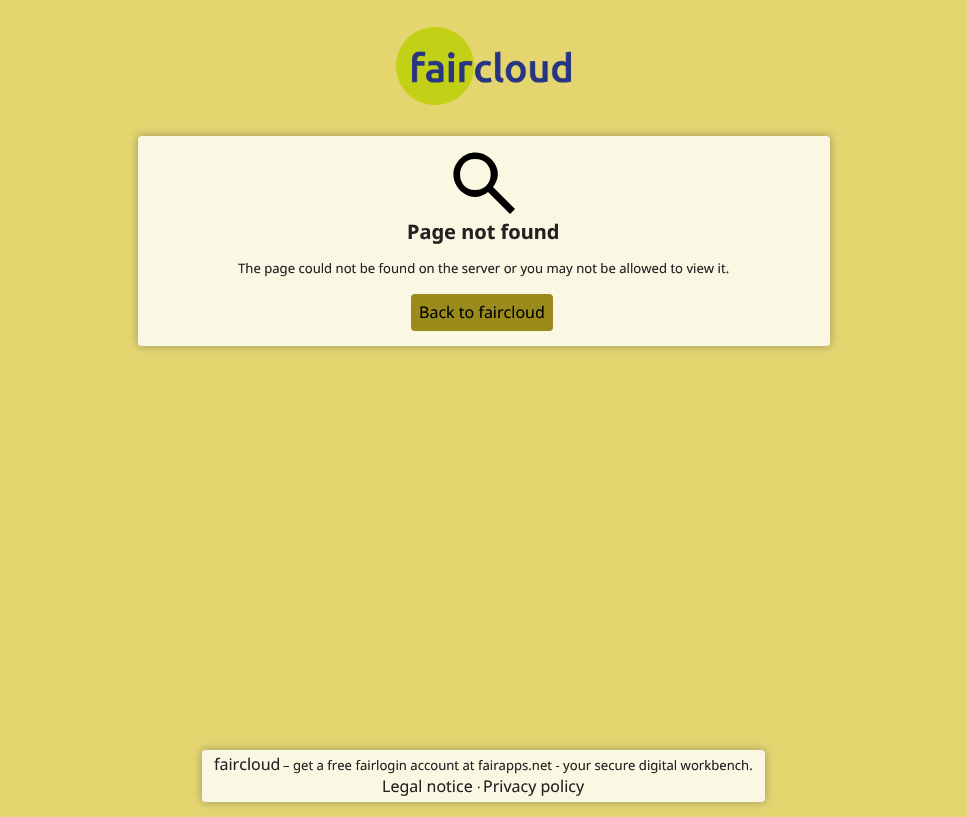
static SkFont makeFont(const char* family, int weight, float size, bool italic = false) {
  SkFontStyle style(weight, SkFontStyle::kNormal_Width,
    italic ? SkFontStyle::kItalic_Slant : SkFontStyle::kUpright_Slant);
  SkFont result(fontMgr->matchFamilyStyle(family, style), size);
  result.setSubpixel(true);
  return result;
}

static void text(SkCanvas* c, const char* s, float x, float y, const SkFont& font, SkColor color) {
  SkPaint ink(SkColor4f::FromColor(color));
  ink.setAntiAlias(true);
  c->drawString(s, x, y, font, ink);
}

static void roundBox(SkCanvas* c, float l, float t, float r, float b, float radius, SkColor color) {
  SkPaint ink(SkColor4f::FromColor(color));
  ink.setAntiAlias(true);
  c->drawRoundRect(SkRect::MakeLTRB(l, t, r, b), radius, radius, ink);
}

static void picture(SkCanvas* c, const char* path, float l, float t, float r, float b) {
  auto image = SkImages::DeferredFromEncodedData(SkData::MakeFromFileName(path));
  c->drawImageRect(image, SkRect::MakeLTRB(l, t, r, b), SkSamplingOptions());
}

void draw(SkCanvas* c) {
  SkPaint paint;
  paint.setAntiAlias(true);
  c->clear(0xffe4d56f);
  picture(c, "img_01.png", 396, 27, 571, 105);
  c->save();
  c->clipPath(SkPathBuilder(SkPathFillType::kEvenOdd).moveTo(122, 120).lineTo(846, 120).lineTo(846, 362).lineTo(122, 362).close().moveTo(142, 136).lineTo(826, 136).cubicTo(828, 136, 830, 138, 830, 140).lineTo(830, 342).cubicTo(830, 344, 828, 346, 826, 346).lineTo(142, 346).cubicTo(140, 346, 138, 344, 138, 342).lineTo(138, 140).cubicTo(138, 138, 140, 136, 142, 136).close().detach(), true);
  paint.setColor(0x804d4d4d);
  paint.setMaskFilter(SkMaskFilter::MakeBlur(kNormal_SkBlurStyle, 5));
  c->drawRoundRect(SkRect::MakeLTRB(138, 136, 830, 346), 4, 4, paint);
  paint.setMaskFilter(nullptr);
  c->restore();
  roundBox(c, 138, 136, 830, 346, 4, 0xccffffff);
  paint.setColor(0xff000000);
  c->drawPath(SkPathBuilder().moveTo(510, 214).lineTo(488, 192).cubicTo(467, 209, 441, 178, 460, 159).cubicTo(479, 140, 510, 166, 493, 187).lineTo(515, 209).close().moveTo(475, 190).cubicTo(496, 190, 496, 159, 475, 159).cubicTo(455, 159, 455, 190, 475, 190).close().detach(), paint);
  SkFont face1 = makeFont("Noto Sans", 700, 20);
  text(c, "Page not found", 407, 239, face1, 0xff222222);
  SkFont face2 = makeFont("Noto Sans", 400, 13.1f);
  text(c, "The page could not be found on the server or you may not be allowed to view it.", 238, 273, face2, 0xff222222);
  roundBox(c, 411, 294, 553, 331, 4, 0xff9a8b1b);
  SkFont face3 = makeFont("Noto Sans", 400, 16);
  text(c, "Back to faircloud", 419, 318, face3, 0xff000000);
  c->save();
  c->clipPath(SkPathBuilder(SkPathFillType::kEvenOdd).moveTo(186, 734).lineTo(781, 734).lineTo(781, 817).lineTo(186, 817).close().moveTo(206, 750).lineTo(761, 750).cubicTo(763, 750, 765, 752, 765, 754).lineTo(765, 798).cubicTo(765, 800, 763, 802, 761, 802).lineTo(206, 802).cubicTo(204, 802, 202, 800, 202, 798).lineTo(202, 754).cubicTo(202, 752, 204, 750, 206, 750).close().detach(), true);
  paint.setColor(0x804d4d4d);
  paint.setMaskFilter(SkMaskFilter::MakeBlur(kNormal_SkBlurStyle, 5));
  c->drawRoundRect(SkRect::MakeLTRB(202, 750, 765, 802), 4, 4, paint);
  paint.setMaskFilter(nullptr);
  c->restore();
  roundBox(c, 202, 750, 765, 802, 4, 0xccffffff);
  text(c, "faircloud", 214, 770, face3, 0xff222222);
  text(c, "– get a free fairlogin account at fairapps.net - your secure digital workbench.", 283, 770, face2, 0xff222222);
  text(c, "Legal notice", 382, 792, face3, 0xff222222);
  text(c, "·", 477, 792, face2, 0xff222222);
  text(c, "Privacy policy", 483, 792, face3, 0xff222222);
}
